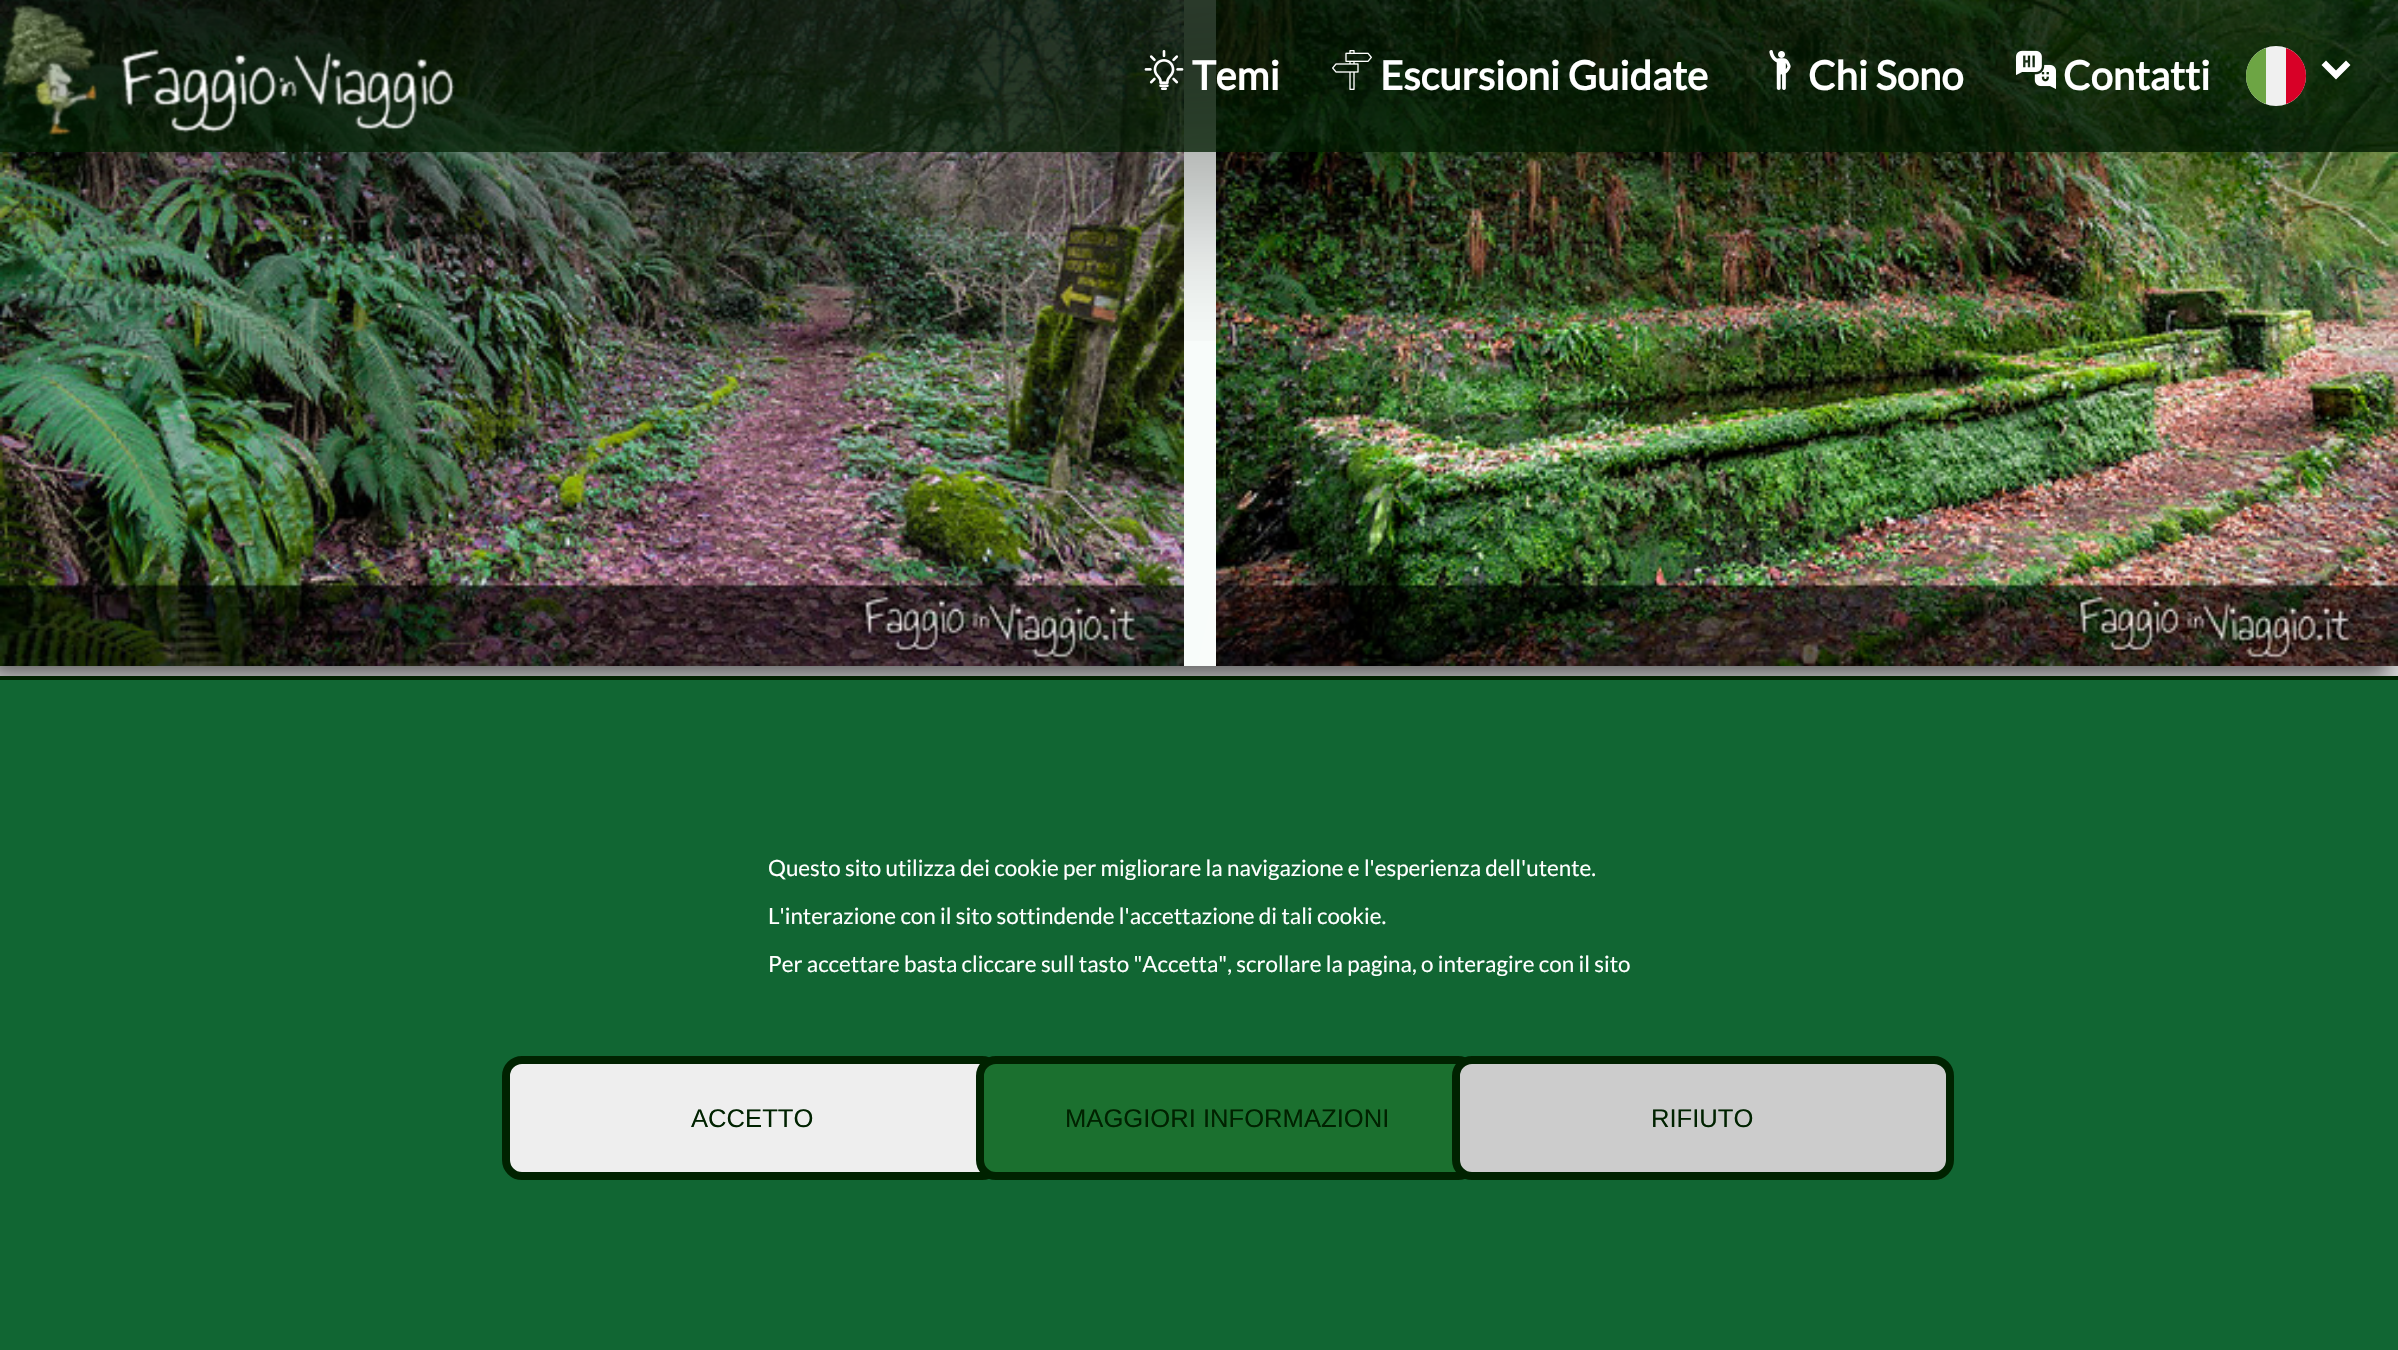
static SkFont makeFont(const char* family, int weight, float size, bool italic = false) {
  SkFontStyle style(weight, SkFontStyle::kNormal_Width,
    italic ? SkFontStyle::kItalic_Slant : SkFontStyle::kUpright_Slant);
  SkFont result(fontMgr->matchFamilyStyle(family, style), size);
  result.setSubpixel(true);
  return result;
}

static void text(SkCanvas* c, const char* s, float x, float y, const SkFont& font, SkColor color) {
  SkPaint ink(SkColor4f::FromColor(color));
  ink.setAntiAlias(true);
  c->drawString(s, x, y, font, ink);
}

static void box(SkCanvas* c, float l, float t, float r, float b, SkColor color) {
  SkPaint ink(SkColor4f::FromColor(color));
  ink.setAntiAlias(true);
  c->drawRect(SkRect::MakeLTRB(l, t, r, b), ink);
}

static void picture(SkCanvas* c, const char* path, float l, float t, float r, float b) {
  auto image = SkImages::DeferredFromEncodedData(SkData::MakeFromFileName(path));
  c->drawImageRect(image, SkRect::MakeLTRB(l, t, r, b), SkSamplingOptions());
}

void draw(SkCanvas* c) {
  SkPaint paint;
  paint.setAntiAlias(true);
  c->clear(0xffffffff);
  {
    const SkColor colors[] = {0xffeeeeee, 0xffcccccc, 0xffeeeeee};
    const float stops[] = {0, 0.5f, 1};
    const SkPoint ends[] = {{1556, 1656}, {842, -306}};
    paint.setShader(SkGradientShader::MakeLinear(ends, colors, stops, 3, SkTileMode::kClamp));
    paint.setAlpha(255);
  }
  c->drawRect(SkRect::MakeLTRB(0, 666, 2398, 676), paint);
  paint.setShader(nullptr);
  paint.setColor(0xff666666);
  paint.setMaskFilter(SkMaskFilter::MakeBlur(kNormal_SkBlurStyle, 10));
  c->drawRect(SkRect::MakeLTRB(-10, -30, 2388, 676), paint);
  paint.setMaskFilter(nullptr);
  {
    const SkColor colors[] = {0xffe0f2e9, 0xffffffff};
    const float stops[] = {0, 1};
    SkMatrix m = SkMatrix::Translate(0, -20372).preScale(3391, 29752);
    paint.setShader(SkGradientShader::MakeRadial({0, 0}, 1, colors, stops, 2, SkTileMode::kClamp, 0, &m));
    paint.setAlpha(255);
  }
  c->drawRect(SkRect::MakeLTRB(1184, 0, 1216, 666), paint);
  picture(c, "img_01.png", 0, 0, 1184, 666);
  picture(c, "img_02.png", 1216, 0, 2398, 666);
  c->save();
  c->clipRect(SkRect::MakeLTRB(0, 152, 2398, 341));
  paint.setShader(nullptr);
  paint.setColor(0x99000000);
  paint.setMaskFilter(SkMaskFilter::MakeBlur(kNormal_SkBlurStyle, 100));
  c->drawRect(SkRect::MakeLTRB(0, 6, 2398, 158), paint);
  paint.setMaskFilter(nullptr);
  c->restore();
  {
    const SkColor colors[] = {0xb3000000, 0x80002800};
    const float stops[] = {0, 1};
    SkMatrix m = SkMatrix::Translate(2398, 152).preScale(3391, 215);
    paint.setShader(SkGradientShader::MakeRadial({0, 0}, 1, colors, stops, 2, SkTileMode::kClamp, 0, &m));
    paint.setAlpha(255);
  }
  c->drawRect(SkRect::MakeLTRB(0, 0, 2398, 152), paint);
  {
    const SkColor colors[] = {0xb3000000, 0x80002800};
    const float stops[] = {0, 1};
    SkMatrix m = SkMatrix::Translate(0, 0).preScale(3391, 215);
    paint.setShader(SkGradientShader::MakeRadial({0, 0}, 1, colors, stops, 2, SkTileMode::kClamp, 0, &m));
    paint.setAlpha(255);
  }
  c->drawRect(SkRect::MakeLTRB(0, 0, 2398, 152), paint);
  picture(c, "img_03.png", 1, 5, 98, 135);
  picture(c, "img_04.png", 121, 49, 455, 133);
  picture(c, "img_05.png", 1144, 50, 1184, 90);
  SkFont face1 = makeFont("Lato", 700, 40);
  text(c, "Temi", 1192, 90, face1, 0xffffffff);
  picture(c, "img_06.png", 1332, 50, 1372, 90);
  text(c, "Escursioni Guidate", 1380, 90, face1, 0xffffffff);
  picture(c, "img_07.png", 1769, 50, 1791, 90);
  text(c, "Chi Sono", 1808, 90, face1, 0xffffffff);
  picture(c, "img_08.png", 2016, 50, 2056, 89);
  text(c, "Contatti", 2063, 90, face1, 0xffffffff);
  paint.setShader(nullptr);
  paint.setColor(0xfff0f0f0);
  c->drawCircle(2276, 76, 30, paint);
  paint.setColor(0xffd80027);
  c->drawPath(SkPathBuilder().moveTo(2306, 76).cubicTo(2306, 63, 2298, 52, 2286, 48).lineTo(2286, 104).cubicTo(2298, 100, 2306, 89, 2306, 76).close().detach(), paint);
  paint.setColor(0xff6da544);
  c->drawPath(SkPathBuilder().moveTo(2246, 76).cubicTo(2246, 89, 2254, 100, 2266, 104).lineTo(2266, 48).cubicTo(2254, 52, 2246, 63, 2246, 76).close().detach(), paint);
  paint.setColor(0xffffffff);
  c->drawPath(SkPathBuilder().moveTo(2321.5f, 65).lineTo(2336, 79.5f).lineTo(2350.5f, 65).lineTo(2346, 60.5f).lineTo(2336, 70.5f).lineTo(2326, 60.5f).close().detach(), paint);
  box(c, 0, 680, 2398, 1350, 0xff116633);
  box(c, 0, 676, 2398, 680, 0xff002200);
  SkFont face2 = makeFont("Lato", 400, 22.4f);
  text(c, "Questo sito utilizza dei cookie per migliorare la navigazione e l'esperienza dell'utente.", 768, 876, face2, 0xffffffff);
  text(c, "L'interazione con il sito sottindende l'accettazione di tali cookie.", 768, 924, face2, 0xffffffff);
  text(c, "Per accettare basta cliccare sull tasto \"Accetta\", scrollare la pagina, o interagire con il sito", 768, 972, face2, 0xffffffff);
  paint.setColor(0xffeeeeee);
  c->drawRoundRect(SkRect::MakeLTRB(506, 1060, 998, 1176), 16, 16, paint);
  paint.setStyle(SkPaint::kStroke_Style);
  paint.setStrokeWidth(8);
  paint.setColor(0xff002200);
  c->drawRoundRect(SkRect::MakeLTRB(506, 1060, 998, 1176), 16, 16, paint);
  SkFont face3 = makeFont("Liberation Sans", 400, 25.6f);
  text(c, "ACCETTO", 691, 1127, face3, 0xff002200);
  paint.setStyle(SkPaint::kFill_Style);
  paint.setColor(0xff1b702f);
  c->drawRoundRect(SkRect::MakeLTRB(980, 1060, 1474, 1176), 16, 16, paint);
  paint.setStyle(SkPaint::kStroke_Style);
  paint.setColor(0xff002200);
  c->drawRoundRect(SkRect::MakeLTRB(980, 1060, 1474, 1176), 16, 16, paint);
  text(c, "MAGGIORI INFORMAZIONI", 1065, 1127, face3, 0xff002200);
  paint.setStyle(SkPaint::kFill_Style);
  paint.setColor(0xffcccccc);
  c->drawRoundRect(SkRect::MakeLTRB(1456, 1060, 1950, 1176), 16, 16, paint);
  paint.setStyle(SkPaint::kStroke_Style);
  paint.setColor(0xff002200);
  c->drawRoundRect(SkRect::MakeLTRB(1456, 1060, 1950, 1176), 16, 16, paint);
  text(c, "RIFIUTO", 1651, 1127, face3, 0xff002200);
}
